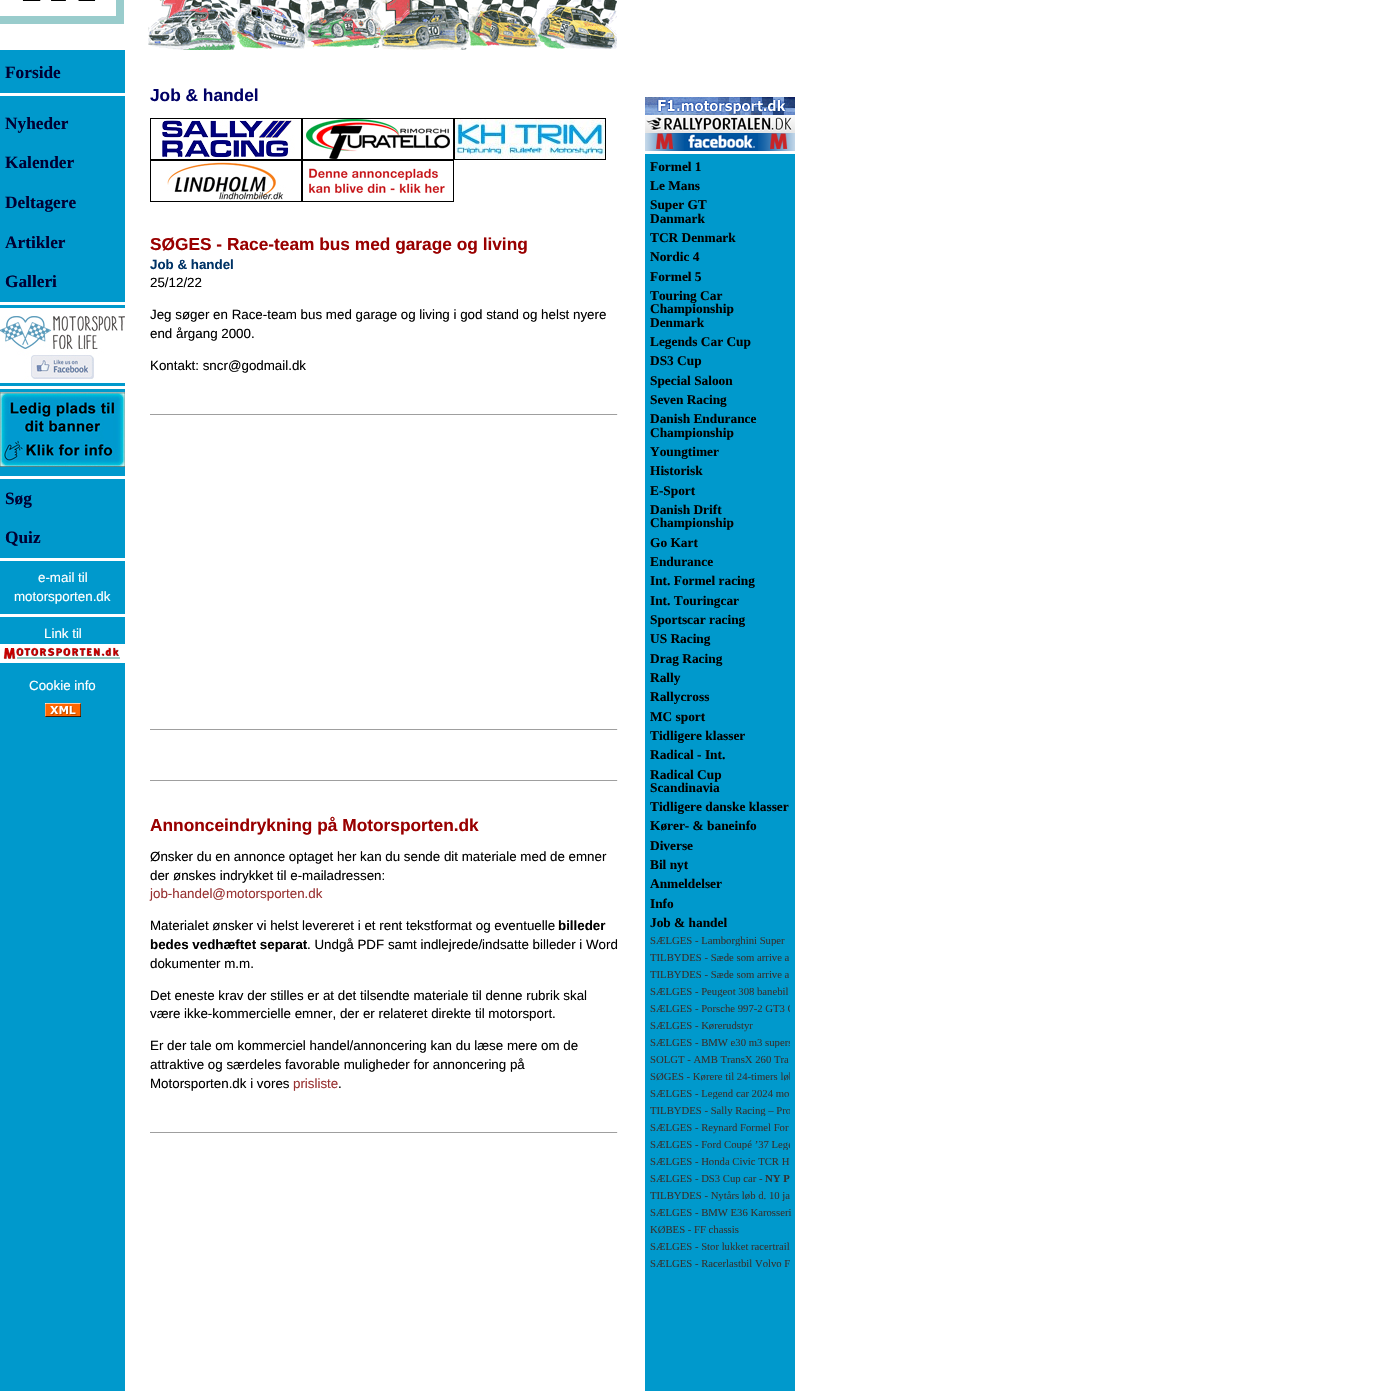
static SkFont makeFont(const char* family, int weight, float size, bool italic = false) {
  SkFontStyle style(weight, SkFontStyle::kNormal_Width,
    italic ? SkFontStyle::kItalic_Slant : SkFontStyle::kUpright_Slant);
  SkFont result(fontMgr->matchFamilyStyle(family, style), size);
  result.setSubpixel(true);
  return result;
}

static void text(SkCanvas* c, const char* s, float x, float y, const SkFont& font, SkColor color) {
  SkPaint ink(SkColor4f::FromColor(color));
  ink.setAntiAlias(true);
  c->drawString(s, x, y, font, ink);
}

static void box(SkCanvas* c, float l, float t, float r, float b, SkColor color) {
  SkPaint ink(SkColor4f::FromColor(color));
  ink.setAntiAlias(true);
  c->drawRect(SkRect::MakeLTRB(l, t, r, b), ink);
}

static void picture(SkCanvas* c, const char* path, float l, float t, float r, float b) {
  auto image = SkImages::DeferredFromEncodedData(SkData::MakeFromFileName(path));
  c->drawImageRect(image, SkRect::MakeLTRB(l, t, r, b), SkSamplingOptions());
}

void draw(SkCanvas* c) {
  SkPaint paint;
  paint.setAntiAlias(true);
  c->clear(0xffffffff);
  picture(c, "img_01.png", 22, 0, 96, 1);
  picture(c, "img_02.png", 96, 0, 124, 24);
  picture(c, "img_03.png", 148, 0, 617, 50);
  box(c, 0, 16, 96, 24, 0xff99cccc);
  box(c, 0, 50, 125, 1391, 0xff0099cc);
  SkFont face1 = makeFont("Liberation Serif", 700, 17.3f);
  text(c, "Forside", 5, 78, face1, 0xff000033);
  box(c, 0, 93, 125, 96, 0xffffffff);
  text(c, "Nyheder", 5, 129, face1, 0xff000033);
  text(c, "Kalender", 5, 168, face1, 0xff000033);
  text(c, "Deltagere", 5, 208, face1, 0xff000033);
  text(c, "Artikler", 5, 248, face1, 0xff000033);
  text(c, "Galleri", 5, 287, face1, 0xff000033);
  box(c, 0, 302, 125, 305, 0xffffffff);
  picture(c, "img_04.png", 0, 308, 125, 383);
  box(c, 0, 386, 125, 389, 0xffffffff);
  picture(c, "img_05.png", 0, 392, 125, 467);
  box(c, 0, 476, 125, 479, 0xffffffff);
  text(c, "Søg", 5, 504, face1, 0xff000033);
  text(c, "Quiz", 5, 543, face1, 0xff000033);
  box(c, 0, 558, 125, 561, 0xffffffff);
  SkFont face2 = makeFont("Liberation Sans", 400, 13.35f);
  text(c, "e-mail til", 38, 582, face2, 0xffffffff);
  text(c, "motorsporten.dk", 14, 601, face2, 0xffffffff);
  box(c, 0, 614, 125, 617, 0xffffffff);
  text(c, "Link til", 44, 638, face2, 0xffffffff);
  picture(c, "img_06.png", 0, 644, 125, 663);
  text(c, "Cookie info", 29, 690, face2, 0xffffffff);
  picture(c, "img_07.png", 45, 703, 81, 717);
  SkFont face3 = makeFont("Liberation Sans", 700, 17.3f);
  text(c, "Job & handel", 150, 101, face3, 0xff000066);
  picture(c, "img_08.png", 150, 118, 606, 202);
  text(c, "SØGES - Race-team bus med garage og living", 150, 250, face3, 0xff990000);
  SkFont face4 = makeFont("Liberation Sans", 700, 13.35f);
  text(c, "Job & handel", 150, 269, face4, 0xff003366);
  text(c, "25/12/22", 150, 287, face2, 0xff000000);
  text(c, "Jeg søger en Race-team bus med garage og living i god stand og helst nyere", 150, 319, face2, 0xff000000);
  text(c, "end årgang 2000.", 150, 338, face2, 0xff000000);
  text(c, "Kontakt: sncr@godmail.dk", 150, 370, face2, 0xff000000);
  box(c, 150, 414, 618, 415, 0xff9f9f9f);
  box(c, 617, 414, 618, 415, 0xffeeeeee);
  box(c, 150, 729, 618, 730, 0xff9f9f9f);
  box(c, 617, 729, 618, 730, 0xffeeeeee);
  box(c, 150, 780, 618, 781, 0xff9f9f9f);
  box(c, 617, 780, 618, 781, 0xffeeeeee);
  text(c, "Annonceindrykning på Motorsporten.dk", 150, 831, face3, 0xff990000);
  text(c, "Ønsker du en annonce optaget her kan du sende dit materiale med de emner", 150, 861, face2, 0xff000000);
  text(c, "der ønskes indrykket til e-mailadressen:", 150, 880, face2, 0xff000000);
  text(c, "job-handel@motorsporten.dk", 150, 898, face2, 0xff993333);
  text(c, "Materialet ønsker vi helst levereret i et rent tekstformat og eventuelle", 150, 930, face2, 0xff000000);
  text(c, "billeder", 558, 930, face4, 0xff000000);
  text(c, "bedes vedhæftet separat", 150, 949, face4, 0xff000000);
  text(c, ". Undgå PDF samt indlejrede/indsatte billeder i Word", 307, 949, face2, 0xff000000);
  text(c, "dokumenter m.m.", 150, 968, face2, 0xff000000);
  text(c, "Det eneste krav der stilles er at det tilsendte materiale til denne rubrik skal", 150, 1000, face2, 0xff000000);
  text(c, "være ikke-kommercielle emner, der er relateret direkte til motorsport.", 150, 1018, face2, 0xff000000);
  text(c, "Er der tale om kommerciel handel/annoncering kan du læse mere om de", 150, 1050, face2, 0xff000000);
  text(c, "attraktive og særdeles favorable muligheder for annoncering på", 150, 1069, face2, 0xff000000);
  text(c, "Motorsporten.dk i vores", 150, 1088, face2, 0xff000000);
  text(c, "prisliste", 293, 1088, face2, 0xff993333);
  text(c, ".", 338, 1088, face2, 0xff000000);
  box(c, 150, 1132, 618, 1133, 0xff9f9f9f);
  box(c, 617, 1132, 618, 1133, 0xffeeeeee);
  box(c, 645, 154, 795, 1391, 0xff0099cc);
  picture(c, "img_09.png", 645, 97, 795, 115);
  picture(c, "img_10.png", 645, 115, 795, 133);
  picture(c, "img_11.png", 645, 133, 795, 151);
  SkFont face5 = makeFont("Liberation Serif", 700, 13.35f);
  text(c, "Formel 1", 650, 171, face5, 0xff000000);
  text(c, "Le Mans", 650, 190, face5, 0xff000000);
  text(c, "Super GT", 650, 209, face5, 0xff000000);
  text(c, "Danmark", 650, 223, face5, 0xff000000);
  text(c, "TCR Denmark", 650, 242, face5, 0xff000000);
  text(c, "Nordic 4", 650, 261, face5, 0xff000000);
  text(c, "Formel 5", 650, 281, face5, 0xff000000);
  text(c, "Touring Car", 650, 300, face5, 0xff000000);
  text(c, "Championship", 650, 313, face5, 0xff000000);
  text(c, "Denmark", 650, 327, face5, 0xff000000);
  text(c, "Legends Car Cup", 650, 346, face5, 0xff000000);
  text(c, "DS3 Cup", 650, 365, face5, 0xff000000);
  text(c, "Special Saloon", 650, 385, face5, 0xff000000);
  text(c, "Seven Racing", 650, 404, face5, 0xff000000);
  text(c, "Danish Endurance", 650, 423, face5, 0xff000000);
  text(c, "Championship", 650, 437, face5, 0xff000000);
  text(c, "Youngtimer", 650, 456, face5, 0xff000000);
  text(c, "Historisk", 650, 475, face5, 0xff000000);
  text(c, "E-Sport", 650, 495, face5, 0xff000000);
  text(c, "Danish Drift", 650, 514, face5, 0xff000000);
  text(c, "Championship", 650, 527, face5, 0xff000000);
  text(c, "Go Kart", 650, 547, face5, 0xff000000);
  text(c, "Endurance", 650, 566, face5, 0xff000000);
  text(c, "Int. Formel racing", 650, 585, face5, 0xff000000);
  text(c, "Int. Touringcar", 650, 605, face5, 0xff000000);
  text(c, "Sportscar racing", 650, 624, face5, 0xff000000);
  text(c, "US Racing", 650, 643, face5, 0xff000000);
  text(c, "Drag Racing", 650, 663, face5, 0xff000000);
  text(c, "Rally", 650, 682, face5, 0xff000000);
  text(c, "Rallycross", 650, 701, face5, 0xff000000);
  text(c, "MC sport", 650, 721, face5, 0xff000000);
  text(c, "Tidligere klasser", 650, 740, face5, 0xff000000);
  text(c, "Radical - Int.", 650, 759, face5, 0xff000000);
  text(c, "Radical Cup", 650, 779, face5, 0xff000000);
  text(c, "Scandinavia", 650, 792, face5, 0xff000000);
  text(c, "Tidligere danske klasser", 650, 811, face5, 0xff000000);
  text(c, "Kører- & baneinfo", 650, 830, face5, 0xff000000);
  text(c, "Diverse", 650, 850, face5, 0xff000000);
  text(c, "Bil nyt", 650, 869, face5, 0xff000000);
  text(c, "Anmeldelser", 650, 888, face5, 0xff000000);
  text(c, "Info", 650, 908, face5, 0xff000000);
  text(c, "Job & handel", 650, 927, face5, 0xff000000);
  c->save();
  c->clipRect(SkRect::MakeLTRB(650, 935, 790, 946));
  SkFont face6 = makeFont("Liberation Serif", 400, 10.7f);
  text(c, "SÆLGES - Lamborghini Super", 650, 944, face6, 0xff333333);
  c->restore();
  text(c, "TILBYDES - Sæde som arrive a", 650, 961, face6, 0xff333333);
  text(c, "TILBYDES - Sæde som arrive a", 650, 978, face6, 0xff333333);
  c->save();
  c->clipRect(SkRect::MakeLTRB(650, 986, 790, 997));
  text(c, "SÆLGES - Peugeot 308 banebil", 650, 995, face6, 0xff333333);
  c->restore();
  c->save();
  c->clipRect(SkRect::MakeLTRB(650, 1003, 790, 1014));
  text(c, "SÆLGES - Porsche 997-2 GT3 C", 650, 1012, face6, 0xff333333);
  c->restore();
  text(c, "SÆLGES - Kørerudstyr", 650, 1029, face6, 0xff333333);
  c->save();
  c->clipRect(SkRect::MakeLTRB(650, 1037, 790, 1048));
  text(c, "SÆLGES - BMW e30 m3 supers", 650, 1046, face6, 0xff333333);
  c->restore();
  text(c, "SOLGT - AMB TransX 260 Tra", 650, 1063, face6, 0xff333333);
  c->save();
  c->clipRect(SkRect::MakeLTRB(650, 1071, 790, 1082));
  text(c, "SØGES - Kørere til 24-timers løb", 650, 1080, face6, 0xff333333);
  c->restore();
  c->save();
  c->clipRect(SkRect::MakeLTRB(650, 1088, 790, 1099));
  text(c, "SÆLGES - Legend car 2024 mo", 650, 1097, face6, 0xff333333);
  c->restore();
  c->save();
  c->clipRect(SkRect::MakeLTRB(650, 1105, 790, 1116));
  text(c, "TILBYDES - Sally Racing – Pro", 650, 1114, face6, 0xff333333);
  c->restore();
  text(c, "SÆLGES - Reynard Formel For", 650, 1131, face6, 0xff333333);
  c->save();
  c->clipRect(SkRect::MakeLTRB(650, 1139, 790, 1150));
  text(c, "SÆLGES - Ford Coupé ’37 Lege", 650, 1148, face6, 0xff333333);
  c->restore();
  text(c, "SÆLGES - Honda Civic TCR H", 650, 1165, face6, 0xff333333);
  c->save();
  c->clipRect(SkRect::MakeLTRB(650, 1173, 790, 1184));
  text(c, "SÆLGES - DS3 Cup car -", 650, 1182, face6, 0xff333333);
  c->restore();
  SkFont face7 = makeFont("Liberation Serif", 700, 10.7f);
  text(c, "NY P", 765, 1182, face7, 0xff333333);
  c->save();
  c->clipRect(SkRect::MakeLTRB(650, 1190, 790, 1201));
  text(c, "TILBYDES - Nytårs løb d. 10 ja", 650, 1199, face6, 0xff333333);
  c->restore();
  text(c, "SÆLGES - BMW E36 Karosseri", 650, 1216, face6, 0xff333333);
  text(c, "KØBES - FF chassis", 650, 1233, face6, 0xff333333);
  text(c, "SÆLGES - Stor lukket racertrail", 650, 1250, face6, 0xff333333);
  text(c, "SÆLGES - Racerlastbil Volvo F", 650, 1267, face6, 0xff333333);
}
